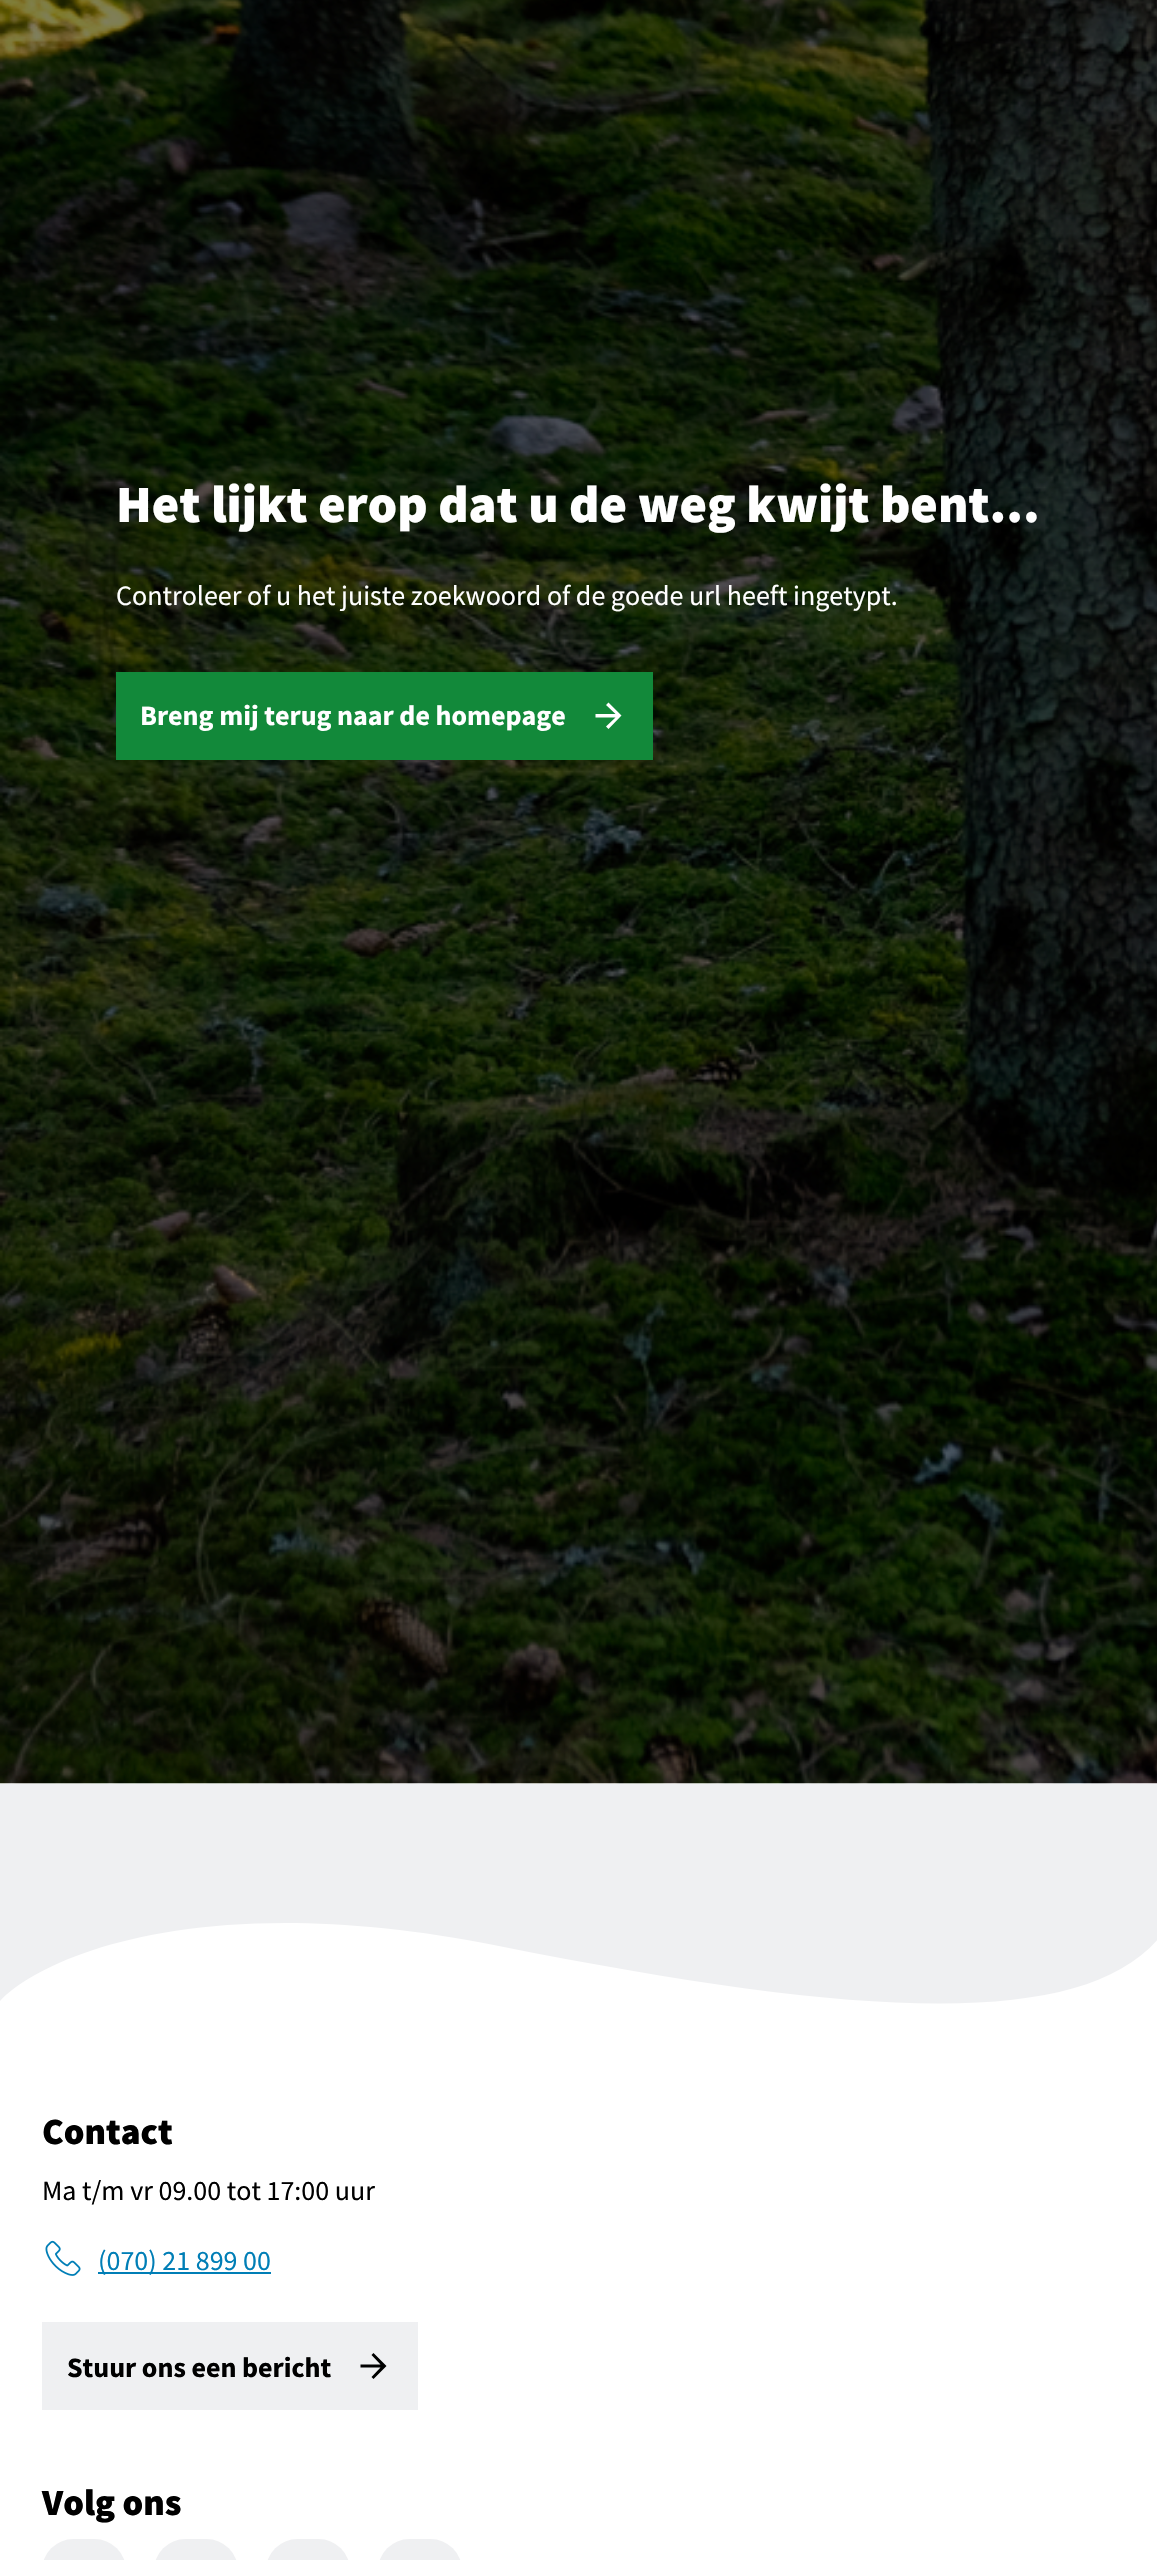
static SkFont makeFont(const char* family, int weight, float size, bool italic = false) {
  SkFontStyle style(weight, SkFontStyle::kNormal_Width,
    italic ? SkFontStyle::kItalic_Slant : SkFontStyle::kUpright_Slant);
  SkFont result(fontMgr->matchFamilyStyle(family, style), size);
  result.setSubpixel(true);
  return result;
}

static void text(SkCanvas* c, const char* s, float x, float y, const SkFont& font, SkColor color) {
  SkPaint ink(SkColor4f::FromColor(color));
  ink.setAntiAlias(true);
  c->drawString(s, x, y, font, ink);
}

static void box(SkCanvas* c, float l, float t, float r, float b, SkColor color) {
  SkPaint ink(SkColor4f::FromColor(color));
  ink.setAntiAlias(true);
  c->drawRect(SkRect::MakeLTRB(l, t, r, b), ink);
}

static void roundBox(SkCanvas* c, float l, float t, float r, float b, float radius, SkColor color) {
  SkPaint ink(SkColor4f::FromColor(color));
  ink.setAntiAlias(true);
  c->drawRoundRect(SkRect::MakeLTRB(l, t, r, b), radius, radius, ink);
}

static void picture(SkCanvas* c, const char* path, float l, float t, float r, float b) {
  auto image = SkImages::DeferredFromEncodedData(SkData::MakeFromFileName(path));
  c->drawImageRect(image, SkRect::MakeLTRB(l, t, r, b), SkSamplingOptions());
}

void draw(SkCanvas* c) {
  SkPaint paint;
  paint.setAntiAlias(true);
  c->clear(0xffeff0f2);
  picture(c, "img_01.png", 0, 0, 1157, 1784);
  SkFont face1 = makeFont("Source Sans Pro", 900, 52.5f);
  text(c, "Het lijkt erop dat u de weg kwijt bent...", 116, 522, face1, 0xffffffff);
  SkFont face2 = makeFont("Source Sans Pro", 400, 28);
  text(c, "Controleer of u het juiste zoekwoord of de goede url heeft ingetypt.", 116, 605, face2, 0xffffffff);
  box(c, 116, 672, 653, 760, 0xff12893a);
  SkFont face3 = makeFont("Source Sans Pro", 700, 28);
  text(c, "Breng mij terug naar de homepage", 140, 725, face3, 0xffffffff);
  paint.setColor(0xffffffff);
  c->drawPath(SkPathBuilder().moveTo(608.5f, 702.5f).lineTo(606, 705).lineTo(615.5f, 714).lineTo(595.5f, 714).lineTo(595.5f, 717.5f).lineTo(615.5f, 717.5f).lineTo(606, 726.5f).lineTo(608.5f, 729).lineTo(621.5f, 715.5f).close().detach(), paint);
  box(c, 0, 2011, 1157, 2560, 0xffffffff);
  c->save();
  c->clipRect(SkRect::MakeLTRB(0, 1923, 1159, 2011));
  c->drawPath(SkPathBuilder().moveTo(499, 1946).cubicTo(199, 1886, 41, 1958, 0, 2001).lineTo(0, 2012).lineTo(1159, 2012).lineTo(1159, 1938).cubicTo(1081, 2030, 860, 2018, 499, 1946).close().detach(), paint);
  c->restore();
  SkFont face4 = makeFont("Source Sans Pro", 900, 37);
  text(c, "Contact", 42, 2144, face4, 0xff000000);
  text(c, "Ma t/m vr 09.00 tot 17:00 uur", 42, 2200, face2, 0xff000000);
  picture(c, "img_02.png", 45, 2240, 81, 2276);
  box(c, 98, 2272, 271, 2274, 0xff007eb6);
  text(c, "(070) 21 899 00", 98, 2270, face2, 0xff007eb6);
  box(c, 42, 2322, 418, 2410, 0xffeff0f2);
  text(c, "Stuur ons een bericht", 67, 2377, face3, 0xff000000);
  paint.setColor(0xff000000);
  c->drawPath(SkPathBuilder().moveTo(373.5f, 2353).lineTo(371.5f, 2355).lineTo(380.5f, 2364.5f).lineTo(360.5f, 2364.5f).lineTo(360.5f, 2367.5f).lineTo(380.5f, 2367.5f).lineTo(371.5f, 2377).lineTo(373.5f, 2379).lineTo(386.5f, 2366).close().detach(), paint);
  text(c, "Volg ons", 42, 2515, face4, 0xff000000);
  roundBox(c, 42, 2539, 126, 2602, 42, 0xffeff0f2);
  roundBox(c, 154, 2539, 238, 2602, 42, 0xffeff0f2);
  roundBox(c, 266, 2539, 350, 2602, 42, 0xffeff0f2);
  roundBox(c, 378, 2539, 462, 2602, 42, 0xffeff0f2);
}
